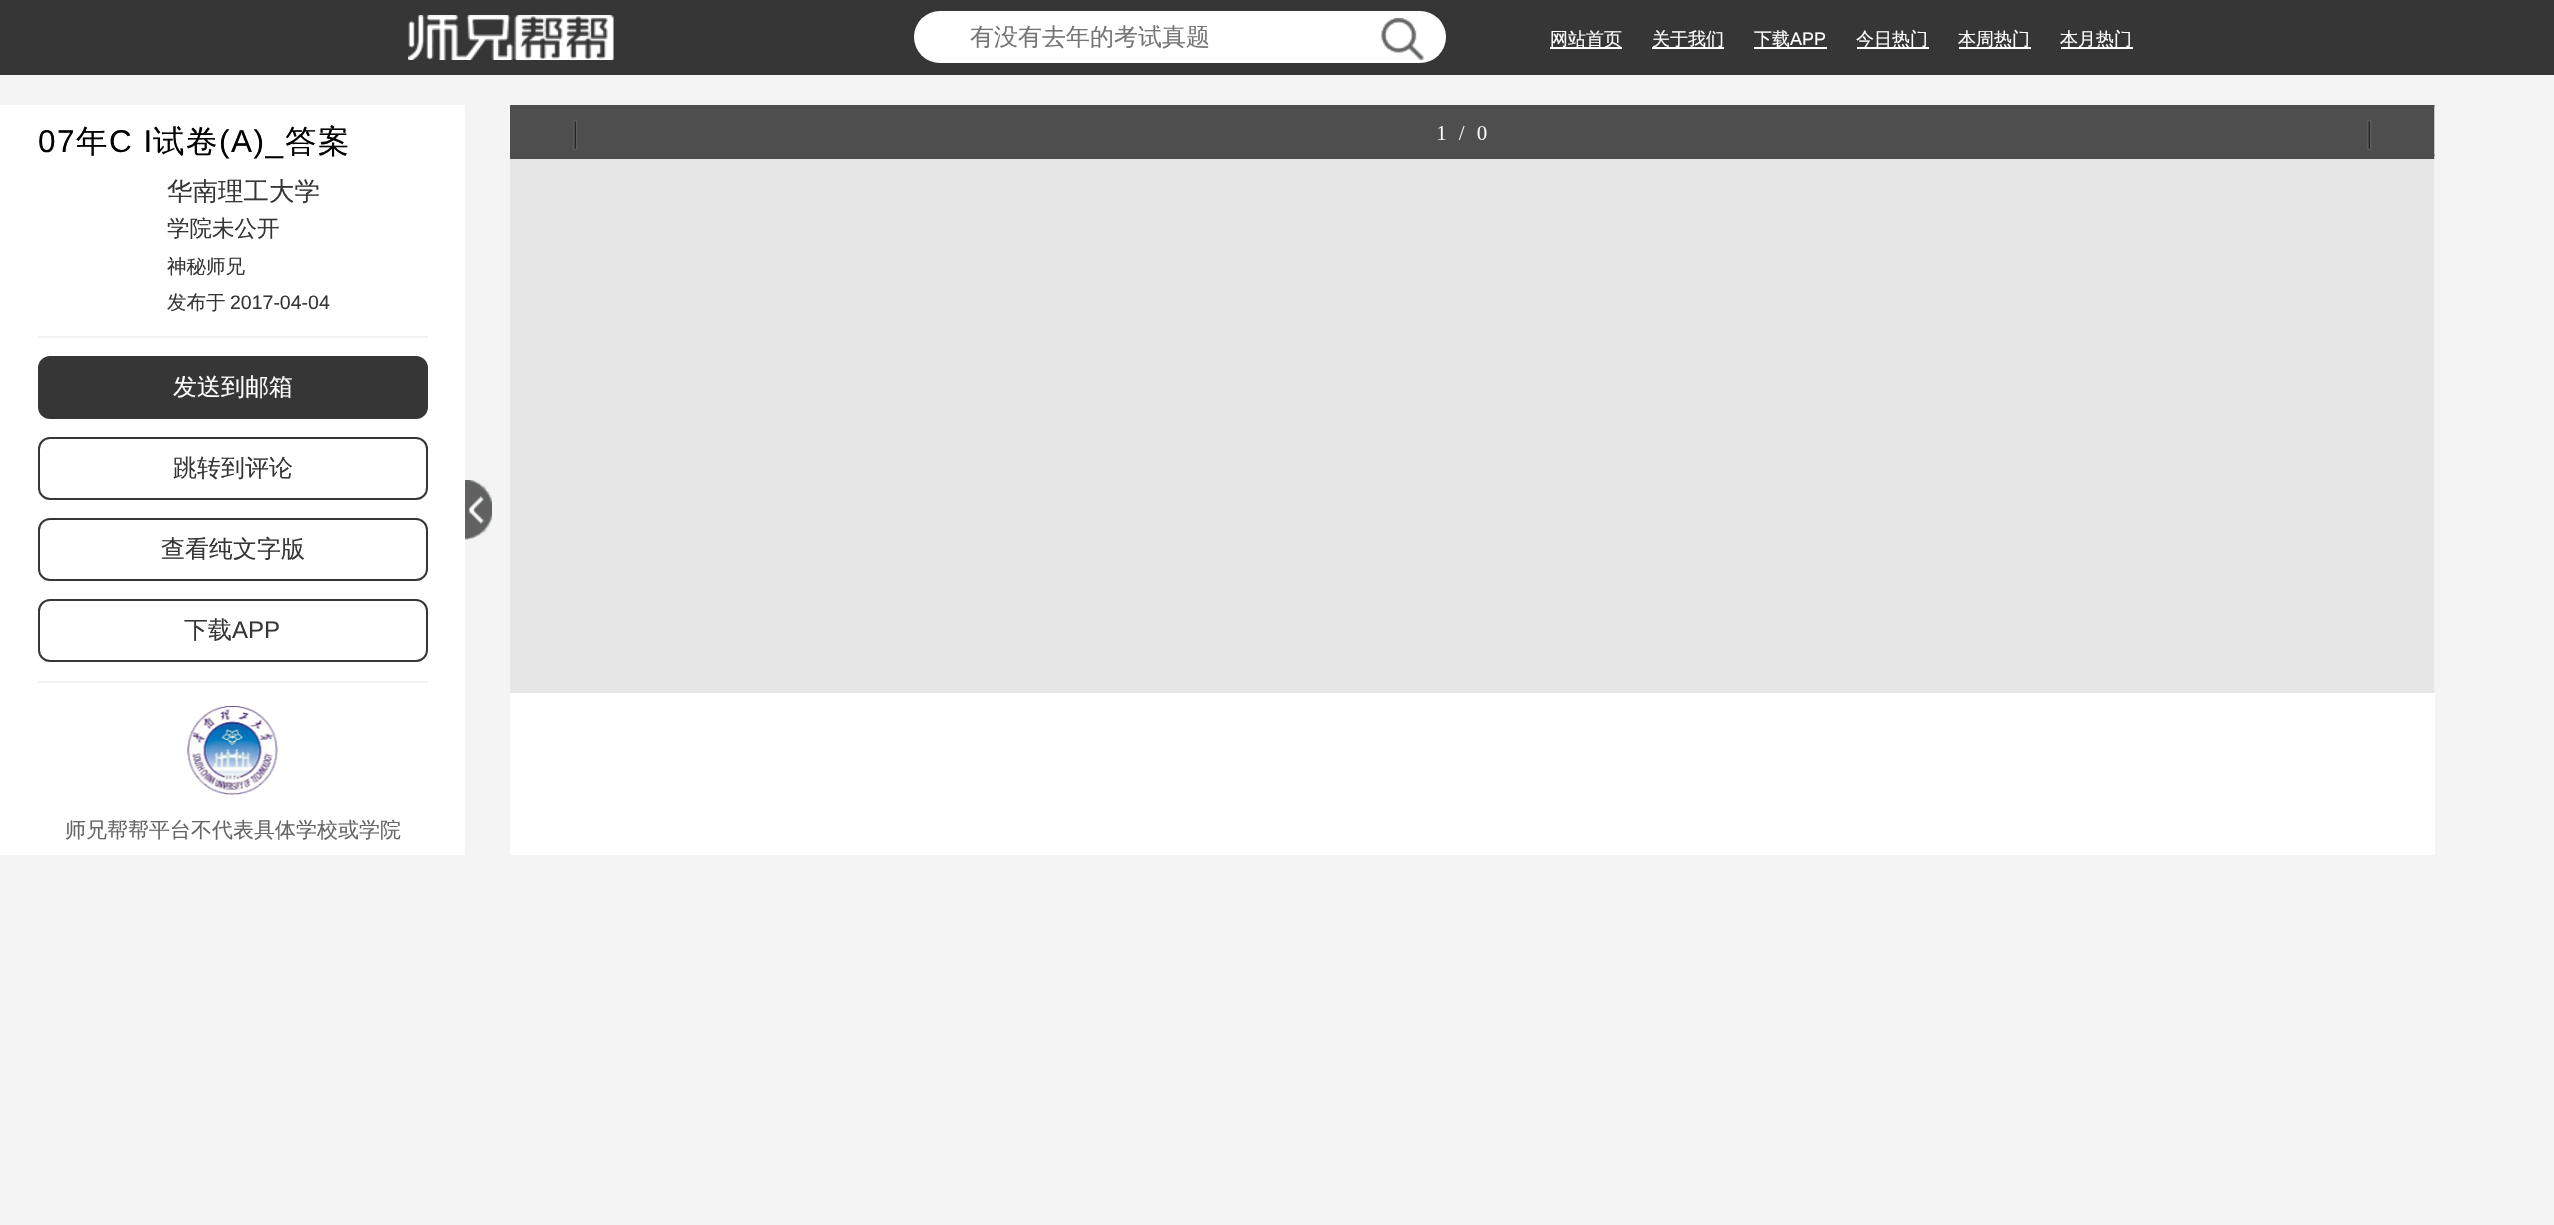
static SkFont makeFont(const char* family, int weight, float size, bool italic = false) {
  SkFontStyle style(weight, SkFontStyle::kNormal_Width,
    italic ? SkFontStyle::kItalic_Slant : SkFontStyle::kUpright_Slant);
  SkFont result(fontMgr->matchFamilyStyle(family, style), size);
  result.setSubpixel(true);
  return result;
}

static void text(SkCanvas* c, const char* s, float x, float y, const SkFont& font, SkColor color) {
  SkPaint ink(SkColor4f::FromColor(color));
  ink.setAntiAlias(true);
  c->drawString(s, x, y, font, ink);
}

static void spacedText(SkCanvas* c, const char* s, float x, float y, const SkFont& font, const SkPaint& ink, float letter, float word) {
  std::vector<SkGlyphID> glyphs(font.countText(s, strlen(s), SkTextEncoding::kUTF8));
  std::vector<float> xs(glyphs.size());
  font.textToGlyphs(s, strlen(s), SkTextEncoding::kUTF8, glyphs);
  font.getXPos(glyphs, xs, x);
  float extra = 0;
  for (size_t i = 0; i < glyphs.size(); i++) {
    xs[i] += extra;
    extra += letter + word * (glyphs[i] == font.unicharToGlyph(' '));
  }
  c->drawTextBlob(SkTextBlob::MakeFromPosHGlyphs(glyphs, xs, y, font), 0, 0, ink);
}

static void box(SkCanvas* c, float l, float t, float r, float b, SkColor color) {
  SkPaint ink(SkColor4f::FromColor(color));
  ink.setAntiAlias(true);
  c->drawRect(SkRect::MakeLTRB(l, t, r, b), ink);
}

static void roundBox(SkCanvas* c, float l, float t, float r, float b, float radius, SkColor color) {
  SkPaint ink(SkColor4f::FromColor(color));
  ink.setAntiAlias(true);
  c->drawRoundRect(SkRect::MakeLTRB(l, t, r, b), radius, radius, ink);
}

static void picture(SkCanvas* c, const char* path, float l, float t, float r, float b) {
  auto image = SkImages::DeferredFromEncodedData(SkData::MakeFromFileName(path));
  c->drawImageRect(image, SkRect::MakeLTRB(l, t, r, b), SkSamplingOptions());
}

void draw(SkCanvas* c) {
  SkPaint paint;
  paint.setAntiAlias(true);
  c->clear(0xfff4f4f4);
  box(c, 0, 0, 2554, 75, 0xff363636);
  picture(c, "img_01.png", 408, 15, 614, 60);
  roundBox(c, 914, 11, 1446, 63, 26, 0xffffffff);
  SkFont face1 = makeFont("WenQuanYi Zen Hei", 500, 24);
  text(c, "有没有去年的考试真题", 970, 45, face1, 0xff757575);
  picture(c, "img_02.png", 1381, 18, 1424, 60);
  box(c, 1550, 47, 1622, 49, 0xffffffff);
  SkFont face2 = makeFont("WenQuanYi Zen Hei", 500, 18);
  text(c, "网站首页", 1550, 45, face2, 0xffffffff);
  box(c, 1652, 47, 1724, 49, 0xffffffff);
  text(c, "关于我们", 1652, 45, face2, 0xffffffff);
  box(c, 1754, 47, 1827, 49, 0xffffffff);
  text(c, "下载", 1754, 45, face2, 0xffffffff);
  SkFont face3 = makeFont("Liberation Sans", 400, 18);
  text(c, "APP", 1790, 45, face3, 0xffffffff);
  box(c, 1857, 47, 1929, 49, 0xffffffff);
  text(c, "今日热门", 1856, 45, face2, 0xffffffff);
  box(c, 1959, 47, 2031, 49, 0xffffffff);
  text(c, "本周热门", 1958, 45, face2, 0xffffffff);
  box(c, 2061, 47, 2133, 49, 0xffffffff);
  text(c, "本月热门", 2060, 45, face2, 0xffffffff);
  box(c, 0, 105, 465, 855, 0xffffffff);
  box(c, 38, 336, 428, 338, 0xfff2f2f2);
  SkFont face4 = makeFont("Liberation Sans", 400, 31.5f);
  paint.setColor(0xff000000);
  spacedText(c, "07", 38, 152, face4, paint, 1.5f, 0);
  SkFont face5 = makeFont("WenQuanYi Zen Hei", 500, 31.5f);
  spacedText(c, "年", 76, 152, face5, paint, 1.5f, 0);
  spacedText(c, "C I", 109, 152, face4, paint, 1.5f, 0);
  spacedText(c, "试卷", 153, 152, face5, paint, 1.5f, 0);
  spacedText(c, "(A)_", 219, 152, face4, paint, 1.5f, 0);
  spacedText(c, "答案", 285, 152, face5, paint, 1.5f, 0);
  SkFont face6 = makeFont("WenQuanYi Zen Hei", 500, 25.5f);
  text(c, "华南理工大学", 167, 200, face6, 0xff363636);
  SkFont face7 = makeFont("WenQuanYi Zen Hei", 500, 22.5f);
  text(c, "学院未公开", 167, 236, face7, 0xff363636);
  SkFont face8 = makeFont("WenQuanYi Zen Hei", 500, 19.5f);
  text(c, "神秘师兄", 167, 273, face8, 0xff363636);
  text(c, "发布于", 167, 309, face8, 0xff363636);
  SkFont face9 = makeFont("Liberation Sans", 400, 19.5f);
  text(c, "2017-04-04", 230, 309, face9, 0xff363636);
  box(c, 38, 681, 428, 683, 0xfff2f2f2);
  paint.setColor(0xff363636);
  c->drawRoundRect(SkRect::MakeLTRB(39, 357, 427, 418), 11, 11, paint);
  paint.setStyle(SkPaint::kStroke_Style);
  paint.setStrokeWidth(2);
  c->drawRoundRect(SkRect::MakeLTRB(39, 357, 427, 418), 11, 11, paint);
  text(c, "发送到邮箱", 173, 395, face1, 0xffffffff);
  c->drawRoundRect(SkRect::MakeLTRB(39, 438, 427, 499), 11, 11, paint);
  text(c, "跳转到评论", 173, 476, face1, 0xff363636);
  c->drawRoundRect(SkRect::MakeLTRB(39, 519, 427, 580), 11, 11, paint);
  text(c, "查看纯文字版", 161, 557, face1, 0xff363636);
  c->drawRoundRect(SkRect::MakeLTRB(39, 600, 427, 661), 11, 11, paint);
  text(c, "下载", 184, 638, face1, 0xff363636);
  SkFont face10 = makeFont("Liberation Sans", 400, 24);
  text(c, "APP", 232, 638, face10, 0xff363636);
  picture(c, "img_03.png", 465, 480, 492, 540);
  picture(c, "img_04.png", 187, 705, 278, 795);
  SkFont face11 = makeFont("WenQuanYi Zen Hei", 500, 21);
  text(c, "师兄帮帮平台不代表具体学校或学院", 65, 837, face11, 0xff666666);
  box(c, 510, 105, 2435, 855, 0xffffffff);
  picture(c, "img_05.png", 510, 105, 2435, 693);
}
